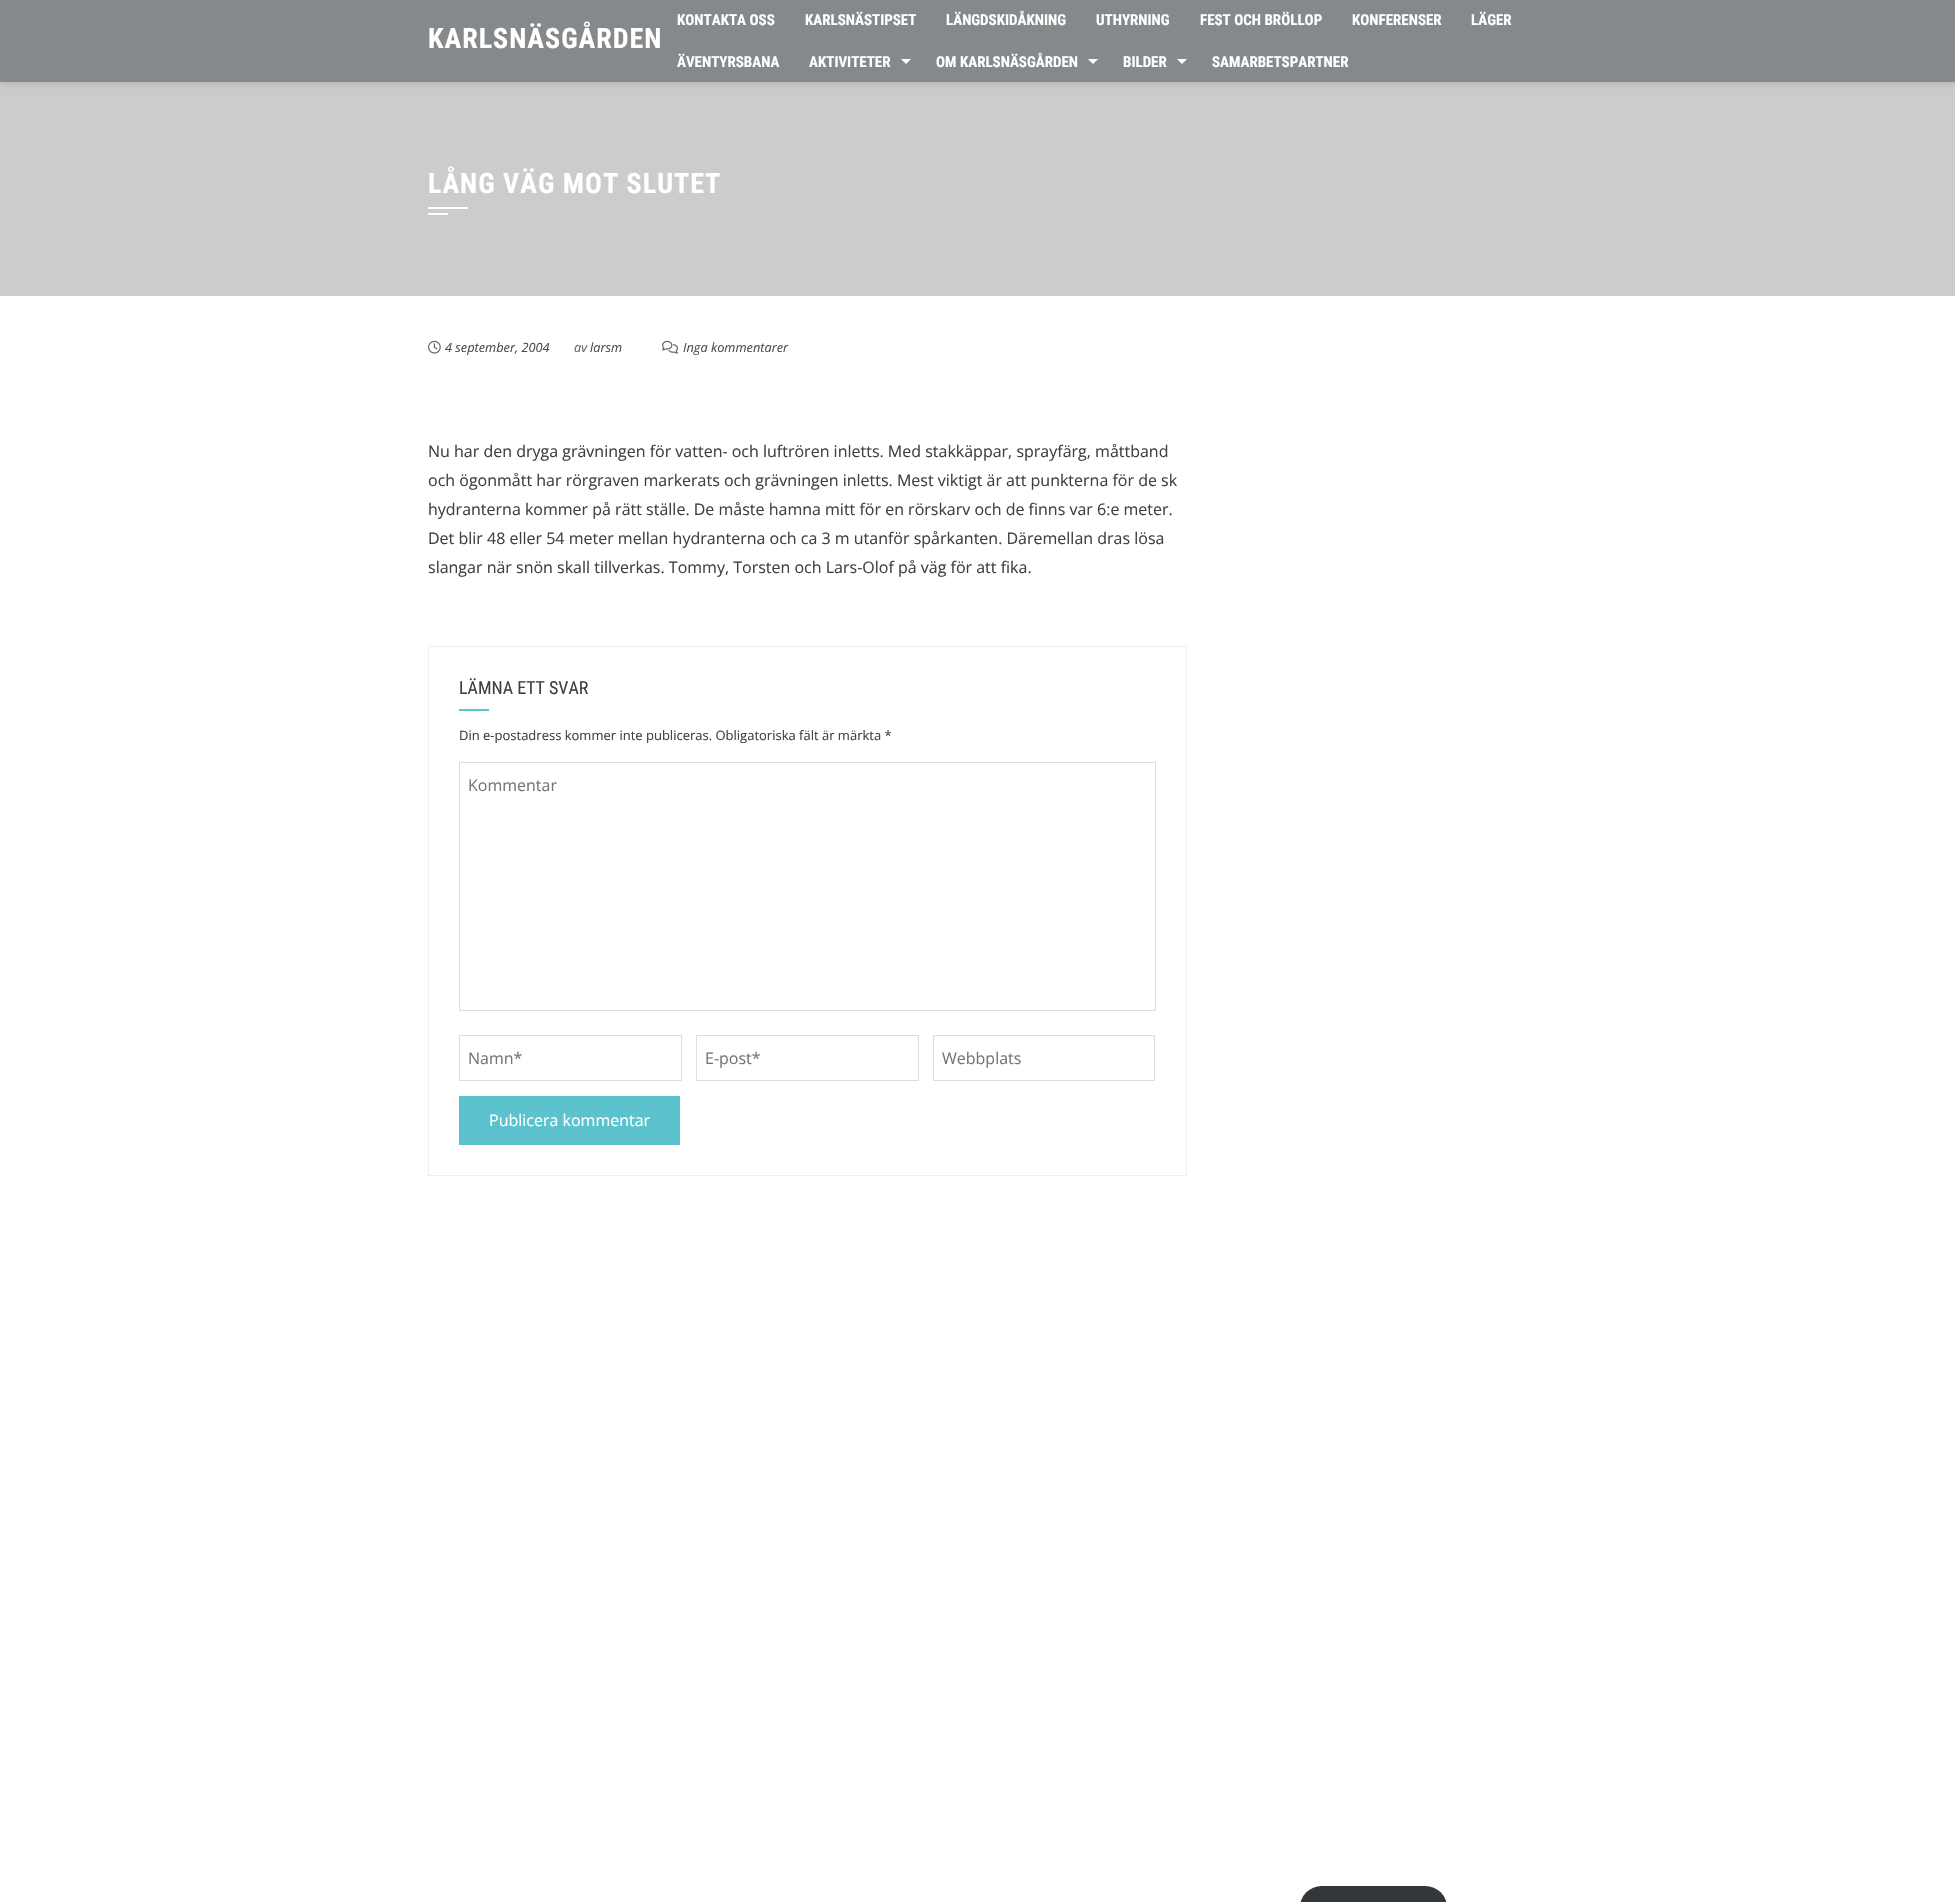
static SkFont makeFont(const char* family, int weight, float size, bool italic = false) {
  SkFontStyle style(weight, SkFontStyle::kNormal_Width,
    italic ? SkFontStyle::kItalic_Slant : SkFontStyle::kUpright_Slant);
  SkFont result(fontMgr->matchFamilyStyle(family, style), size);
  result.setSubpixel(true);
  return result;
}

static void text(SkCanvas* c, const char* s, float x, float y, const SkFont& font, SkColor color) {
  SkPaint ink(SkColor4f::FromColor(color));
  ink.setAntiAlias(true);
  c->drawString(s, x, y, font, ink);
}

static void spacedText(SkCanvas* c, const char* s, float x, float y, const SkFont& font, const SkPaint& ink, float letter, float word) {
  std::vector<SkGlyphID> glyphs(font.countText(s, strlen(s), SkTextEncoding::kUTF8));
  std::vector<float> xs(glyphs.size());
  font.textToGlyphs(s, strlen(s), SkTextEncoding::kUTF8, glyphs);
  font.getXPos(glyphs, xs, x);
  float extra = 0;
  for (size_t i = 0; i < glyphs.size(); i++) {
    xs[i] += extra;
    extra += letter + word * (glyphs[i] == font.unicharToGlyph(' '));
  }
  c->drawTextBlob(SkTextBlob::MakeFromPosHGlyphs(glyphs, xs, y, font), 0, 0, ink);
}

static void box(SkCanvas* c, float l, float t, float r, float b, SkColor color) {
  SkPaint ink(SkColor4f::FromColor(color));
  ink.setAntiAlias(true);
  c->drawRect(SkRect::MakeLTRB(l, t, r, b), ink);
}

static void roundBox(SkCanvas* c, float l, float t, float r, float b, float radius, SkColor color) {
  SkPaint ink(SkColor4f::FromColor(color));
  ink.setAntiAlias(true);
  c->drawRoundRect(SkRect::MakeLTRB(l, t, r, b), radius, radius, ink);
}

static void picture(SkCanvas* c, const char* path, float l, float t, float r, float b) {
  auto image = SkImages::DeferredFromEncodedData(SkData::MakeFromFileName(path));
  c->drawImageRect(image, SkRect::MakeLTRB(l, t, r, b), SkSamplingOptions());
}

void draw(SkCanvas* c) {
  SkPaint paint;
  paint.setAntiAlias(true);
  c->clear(0xffffffff);
  box(c, 0, 82, 1955, 296, 0xffcccccc);
  paint.setColor(0x33000000);
  paint.setMaskFilter(SkMaskFilter::MakeBlur(kNormal_SkBlurStyle, 4));
  c->drawRect(SkRect::MakeLTRB(0, 0, 1955, 82), paint);
  paint.setMaskFilter(nullptr);
  box(c, 0, 0, 1955, 82, 0xff86898b);
  SkFont face1 = makeFont("Roboto Condensed", 700, 28);
  paint.setColor(0xffffffff);
  spacedText(c, "KARLSNÄSGÅRDEN", 428, 48, face1, paint, 1, 0);
  SkFont face2 = makeFont("Roboto Condensed", 700, 15);
  text(c, "KONTAKTA OSS", 677, 25, face2, 0xffffffff);
  text(c, "KARLSNÄSTIPSET", 805, 25, face2, 0xffffffff);
  text(c, "LÄNGDSKIDÅKNING", 946, 25, face2, 0xffffffff);
  text(c, "UTHYRNING", 1096, 25, face2, 0xffffffff);
  text(c, "FEST OCH BRÖLLOP", 1200, 25, face2, 0xffffffff);
  text(c, "KONFERENSER", 1352, 25, face2, 0xffffffff);
  text(c, "LÄGER", 1471, 25, face2, 0xffffffff);
  text(c, "ÄVENTYRSBANA", 677, 67, face2, 0xffffffff);
  text(c, "AKTIVITETER", 809, 67, face2, 0xffffffff);
  c->drawPath(SkPathBuilder().moveTo(901, 59).lineTo(911, 59).lineTo(906, 64).close().detach(), paint);
  text(c, "OM KARLSNÄSGÅRDEN", 936, 67, face2, 0xffffffff);
  c->drawPath(SkPathBuilder().moveTo(1088, 59).lineTo(1098, 59).lineTo(1093, 64).close().detach(), paint);
  text(c, "BILDER", 1123, 67, face2, 0xffffffff);
  c->drawPath(SkPathBuilder().moveTo(1177, 59).lineTo(1187, 59).lineTo(1182, 64).close().detach(), paint);
  text(c, "SAMARBETSPARTNER", 1212, 67, face2, 0xffffffff);
  spacedText(c, "LÅNG VÄG MOT SLUTET", 428, 193, face1, paint, 1, 0);
  box(c, 428, 207, 468, 209, 0xffffffff);
  box(c, 428, 213, 448, 215, 0xffffffff);
  picture(c, "img_01.png", 428, 340, 441, 354);
  SkFont face3 = makeFont("Open Sans", 400, 12.75f, true);
  text(c, "4 september, 2004", 445, 352, face3, 0xff4e4e4e);
  text(c, "av", 574, 352, face3, 0xff666666);
  text(c, "larsm", 590, 352, face3, 0xff4e4e4e);
  picture(c, "img_02.png", 662, 340, 678, 354);
  text(c, "Inga kommentarer", 683, 352, face3, 0xff4e4e4e);
  SkFont face4 = makeFont("Open Sans", 400, 16);
  text(c, "Nu har den dryga grävningen för vatten- och luftrören inletts. Med stakkäppar, sprayfärg, måttband", 428, 457, face4, 0xff404040);
  text(c, "och ögonmått har rörgraven markerats och grävningen inletts. Mest viktigt är att punkterna för de sk", 428, 486, face4, 0xff404040);
  text(c, "hydranterna kommer på rätt ställe. De måste hamna mitt för en rörskarv och de finns var 6:e meter.", 428, 515, face4, 0xff404040);
  text(c, "Det blir 48 eller 54 meter mellan hydranterna och ca 3 m utanför spårkanten. Däremellan dras lösa", 428, 544, face4, 0xff404040);
  text(c, "slangar när snön skall tillverkas. Tommy, Torsten och Lars-Olof på väg för att fika.", 428, 573, face4, 0xff404040);
  paint.setStyle(SkPaint::kStroke_Style);
  paint.setStrokeWidth(1);
  paint.setColor(0xffeeeeee);
  c->drawRect(SkRect::MakeLTRB(428.5f, 646.5f, 1186.5f, 1175.5f), paint);
  SkFont face5 = makeFont("Roboto Condensed", 400, 18);
  text(c, "LÄMNA ETT SVAR", 459, 694, face5, 0xff404040);
  box(c, 459, 709, 489, 711, 0xff5bc2ce);
  SkFont face6 = makeFont("Open Sans", 400, 13);
  text(c, "Din e-postadress kommer inte publiceras. Obligatoriska fält är märkta *", 459, 740, face6, 0xff404040);
  paint.setColor(0xffdddddd);
  c->drawRect(SkRect::MakeLTRB(459.5f, 762.5f, 1155.5f, 1010.5f), paint);
  text(c, "Kommentar", 468, 791, face4, 0xff757575);
  c->drawRect(SkRect::MakeLTRB(459.5f, 1035.5f, 681.5f, 1080.5f), paint);
  text(c, "Namn*", 468, 1064, face4, 0xff757575);
  c->drawRect(SkRect::MakeLTRB(696.5f, 1035.5f, 918.5f, 1080.5f), paint);
  text(c, "E-post*", 705, 1064, face4, 0xff757575);
  c->drawRect(SkRect::MakeLTRB(933.5f, 1035.5f, 1154.5f, 1080.5f), paint);
  text(c, "Webbplats", 942, 1064, face4, 0xff757575);
  box(c, 459, 1096, 680, 1145, 0xff5bc2ce);
  text(c, "Publicera kommentar", 489, 1126, face4, 0xffffffff);
  roundBox(c, 1300, 1886, 1447, 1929, 27, 0xff32373c);
}
